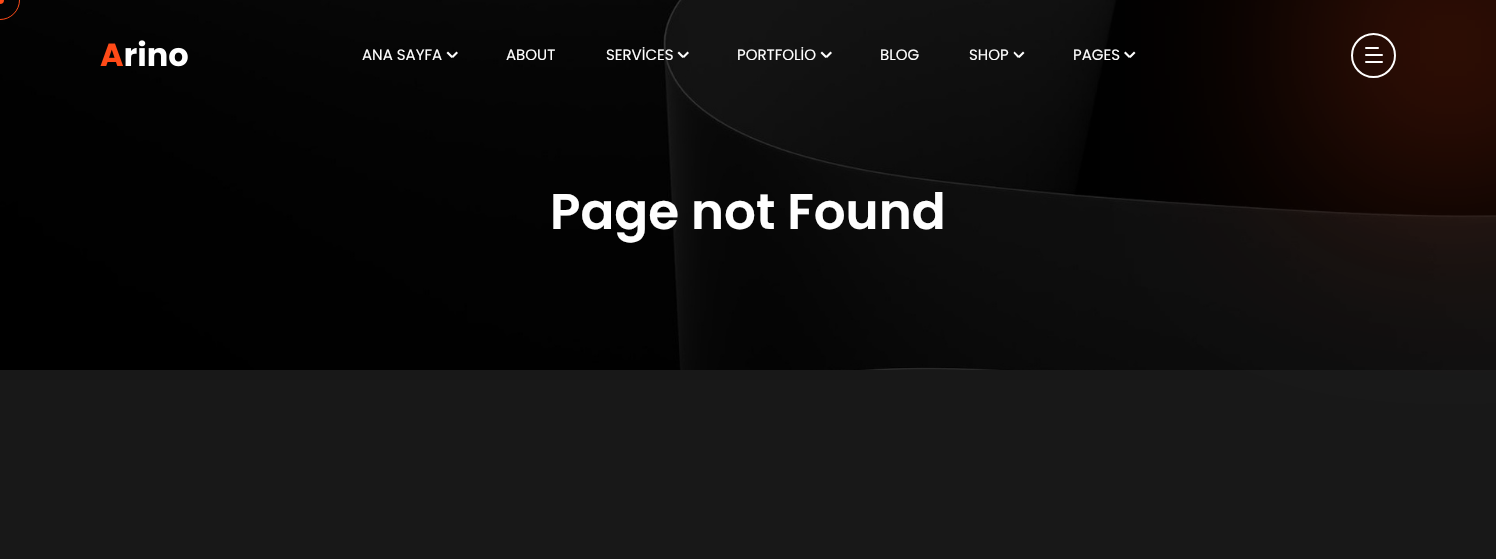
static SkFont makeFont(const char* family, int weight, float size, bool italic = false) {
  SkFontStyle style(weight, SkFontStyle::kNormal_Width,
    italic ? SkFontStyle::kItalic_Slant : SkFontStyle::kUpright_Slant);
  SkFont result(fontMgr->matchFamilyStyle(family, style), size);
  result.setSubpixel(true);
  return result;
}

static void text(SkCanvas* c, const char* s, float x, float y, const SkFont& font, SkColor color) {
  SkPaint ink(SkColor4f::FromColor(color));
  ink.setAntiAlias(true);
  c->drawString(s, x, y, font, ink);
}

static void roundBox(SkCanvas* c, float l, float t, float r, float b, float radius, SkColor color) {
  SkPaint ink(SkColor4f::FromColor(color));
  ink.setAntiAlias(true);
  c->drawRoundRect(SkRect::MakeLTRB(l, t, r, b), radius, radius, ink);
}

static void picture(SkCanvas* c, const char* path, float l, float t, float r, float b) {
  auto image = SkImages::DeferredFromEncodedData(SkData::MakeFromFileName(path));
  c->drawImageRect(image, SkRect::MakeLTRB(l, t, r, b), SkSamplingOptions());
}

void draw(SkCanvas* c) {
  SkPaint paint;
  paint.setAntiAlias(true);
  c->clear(0xff181818);
  picture(c, "img_02.png", 0, 0, 1496, 370);
  paint.setStyle(SkPaint::kStroke_Style);
  paint.setStrokeWidth(1);
  paint.setColor(0xffff4a17);
  c->drawCircle(0, 0, 19.5f, paint);
  paint.setStyle(SkPaint::kFill_Style);
  c->drawCircle(0, 0, 4, paint);
  picture(c, "img_01.png", 100, 40, 188, 67);
  SkFont face1 = makeFont("Poppins", 400, 15);
  text(c, "ANA SAYFA", 362, 60, face1, 0xfffefefe);
  paint.setColor(0xfffefefe);
  c->drawPath(SkPathBuilder().moveTo(456.5f, 51.5f).lineTo(458, 53).lineTo(453, 58).lineTo(451.5f, 56.5f).close().detach(), paint);
  c->drawPath(SkPathBuilder().moveTo(448, 51.5f).lineTo(453, 56.5f).lineTo(451.5f, 58).lineTo(446.5f, 53).close().detach(), paint);
  text(c, "ABOUT", 506, 60, face1, 0xfffefefe);
  text(c, "SERVİCES", 606, 60, face1, 0xfffefefe);
  c->drawPath(SkPathBuilder().moveTo(687.5f, 51.5f).lineTo(689, 53).lineTo(684, 58).lineTo(682.5f, 56.5f).close().detach(), paint);
  c->drawPath(SkPathBuilder().moveTo(679, 51.5f).lineTo(684, 56.5f).lineTo(682.5f, 58).lineTo(677.5f, 53).close().detach(), paint);
  text(c, "PORTFOLİO", 737, 60, face1, 0xfffefefe);
  c->drawPath(SkPathBuilder().moveTo(830.5f, 51.5f).lineTo(832, 53).lineTo(827, 58).lineTo(825.5f, 56.5f).close().detach(), paint);
  c->drawPath(SkPathBuilder().moveTo(822, 51.5f).lineTo(827, 56.5f).lineTo(825.5f, 58).lineTo(820.5f, 53).close().detach(), paint);
  text(c, "BLOG", 880, 60, face1, 0xfffefefe);
  paint.setColor(0xccff4a17);
  paint.setMaskFilter(SkMaskFilter::MakeBlur(kNormal_SkBlurStyle, 125));
  c->drawRect(SkRect::MakeLTRB(1375, -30, 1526, 121), paint);
  paint.setMaskFilter(nullptr);
  text(c, "SHOP", 969, 60, face1, 0xfffefefe);
  paint.setColor(0xfffefefe);
  c->drawPath(SkPathBuilder().moveTo(1023, 51.5f).lineTo(1024.5f, 53).lineTo(1019.5f, 58).lineTo(1018, 56.5f).close().detach(), paint);
  c->drawPath(SkPathBuilder().moveTo(1014.5f, 51.5f).lineTo(1019.5f, 56.5f).lineTo(1018, 58).lineTo(1013.5f, 53).close().detach(), paint);
  text(c, "PAGES", 1073, 60, face1, 0xfffefefe);
  c->drawPath(SkPathBuilder().moveTo(1134, 51.5f).lineTo(1135.5f, 53).lineTo(1130.5f, 58).lineTo(1129, 56.5f).close().detach(), paint);
  c->drawPath(SkPathBuilder().moveTo(1125.5f, 51.5f).lineTo(1130.5f, 56.5f).lineTo(1129, 58).lineTo(1124, 53).close().detach(), paint);
  paint.setStyle(SkPaint::kStroke_Style);
  paint.setStrokeWidth(2);
  c->drawCircle(1373.5f, 55.5f, 21.5f, paint);
  roundBox(c, 1365, 47, 1379, 49, 1, 0xfffefefe);
  roundBox(c, 1365, 54, 1383, 56, 1, 0xfffefefe);
  roundBox(c, 1365, 61, 1383, 63, 1, 0xfffefefe);
  SkFont face2 = makeFont("Poppins", 600, 50);
  text(c, "Page not Found", 550, 229, face2, 0xfffefefe);
}
